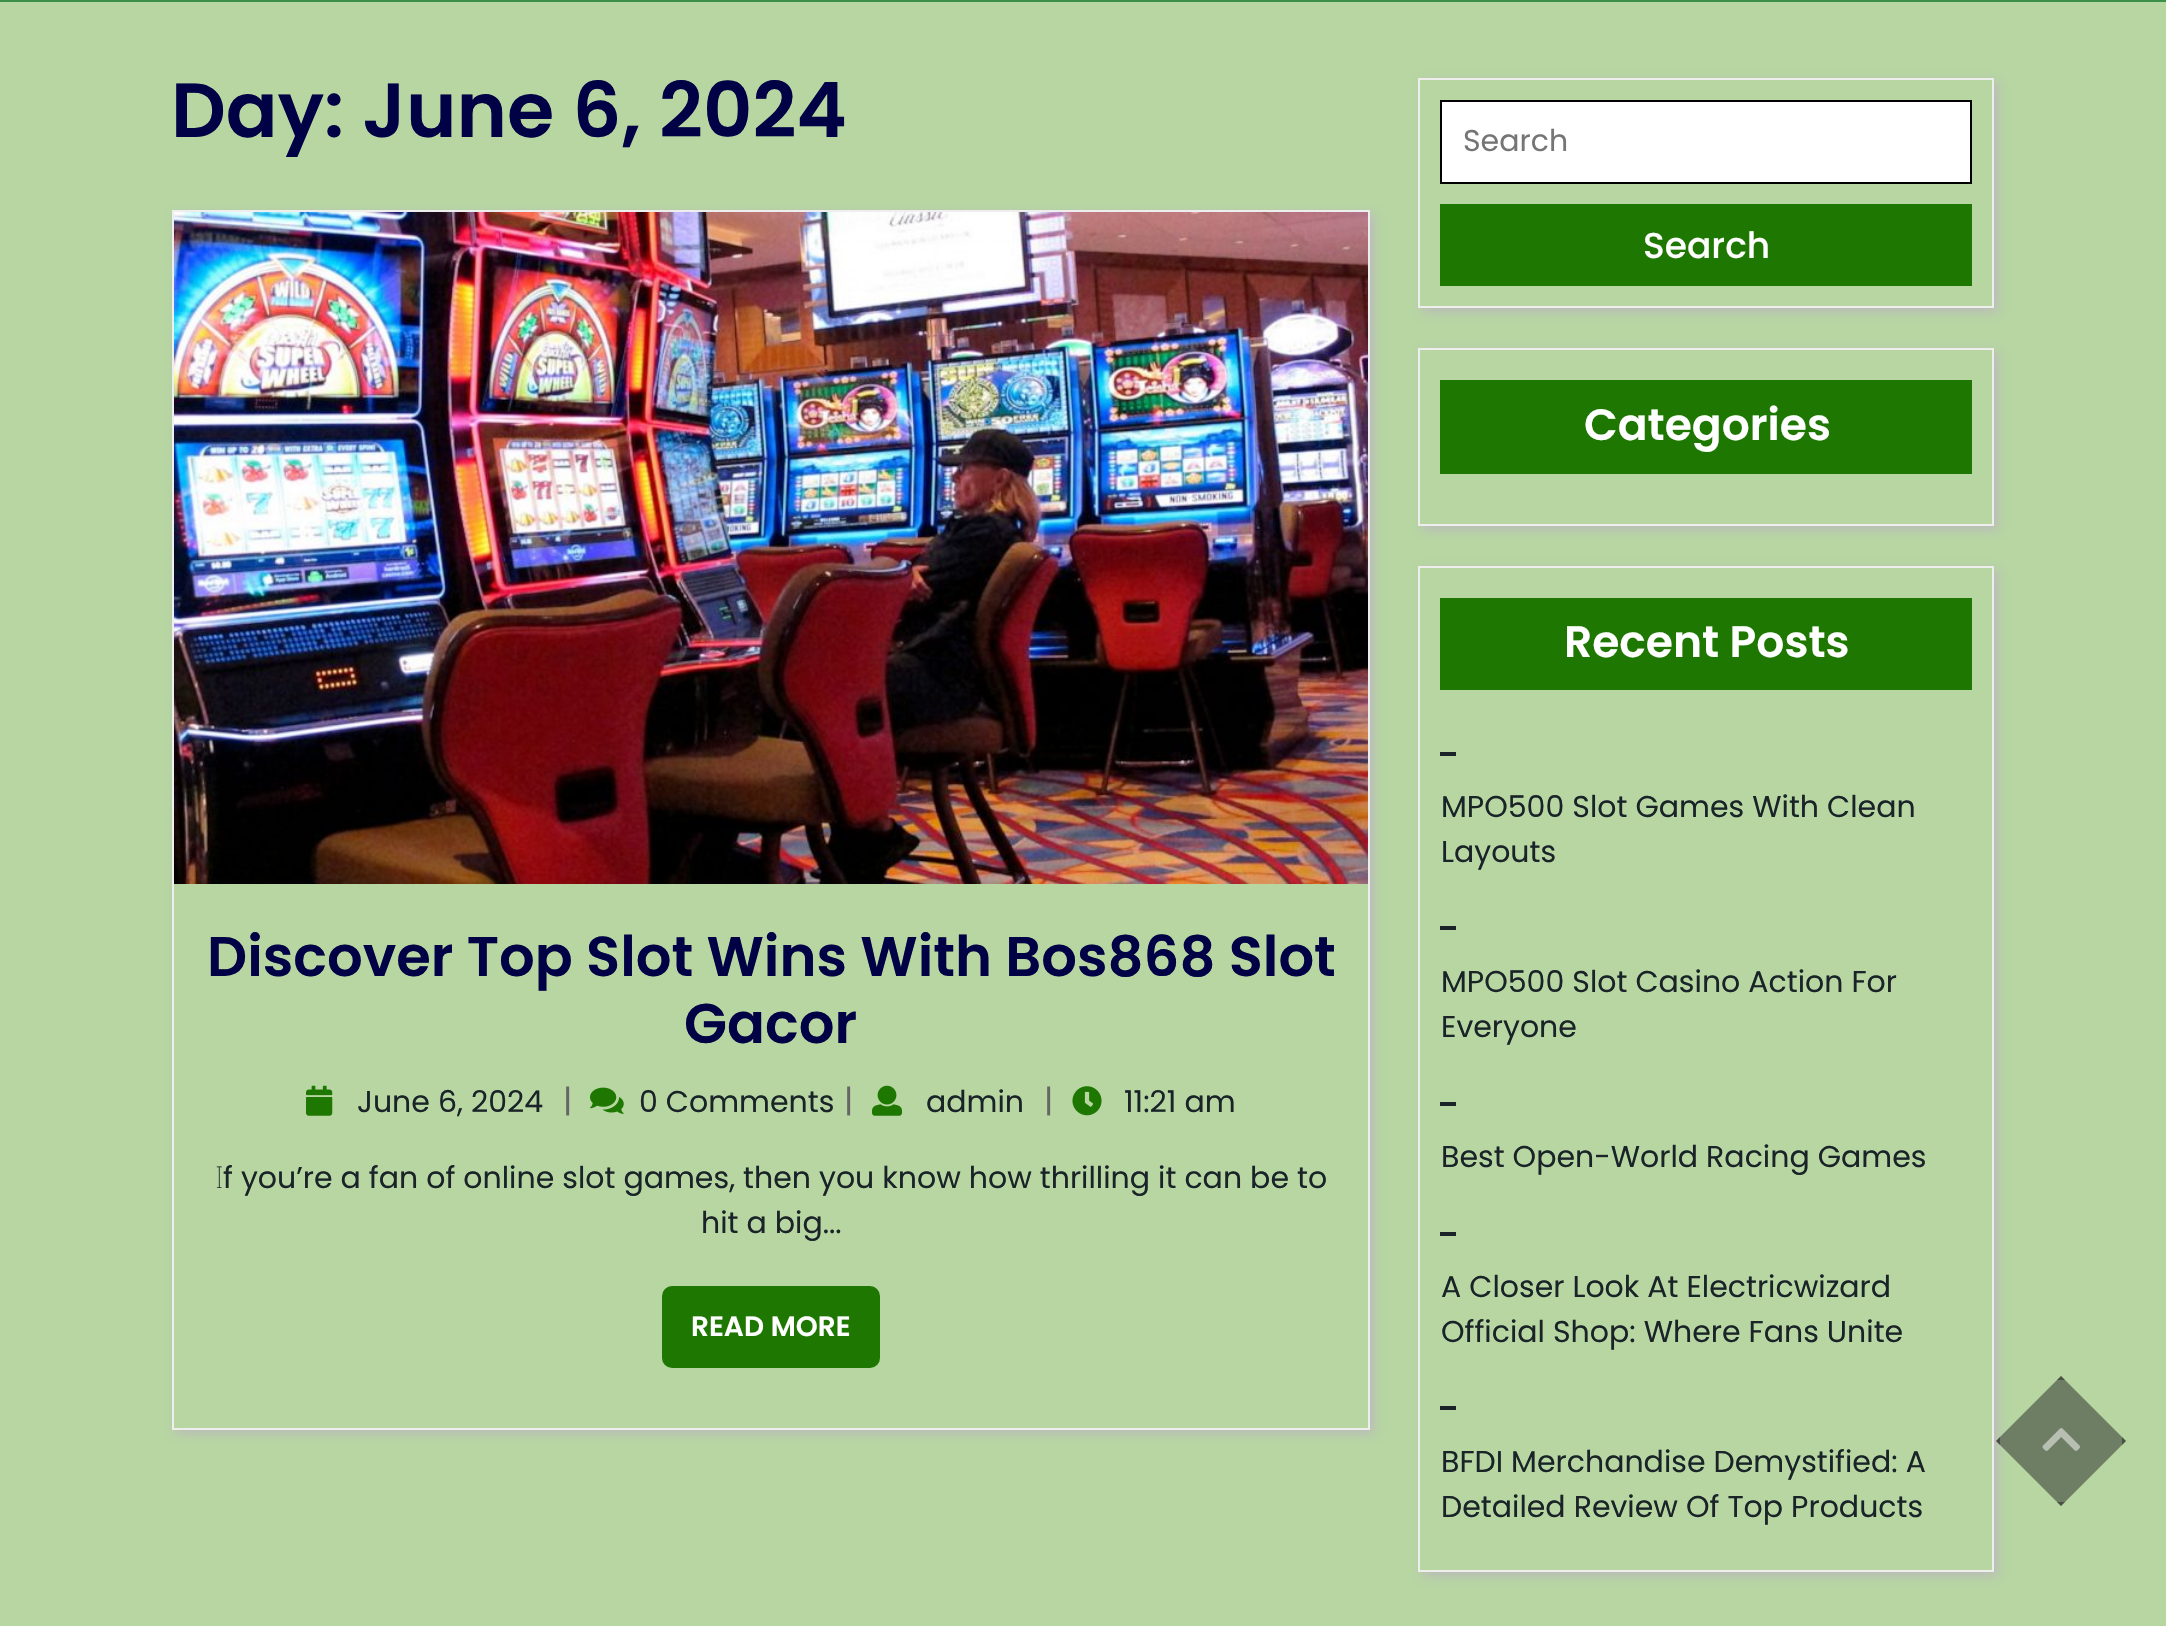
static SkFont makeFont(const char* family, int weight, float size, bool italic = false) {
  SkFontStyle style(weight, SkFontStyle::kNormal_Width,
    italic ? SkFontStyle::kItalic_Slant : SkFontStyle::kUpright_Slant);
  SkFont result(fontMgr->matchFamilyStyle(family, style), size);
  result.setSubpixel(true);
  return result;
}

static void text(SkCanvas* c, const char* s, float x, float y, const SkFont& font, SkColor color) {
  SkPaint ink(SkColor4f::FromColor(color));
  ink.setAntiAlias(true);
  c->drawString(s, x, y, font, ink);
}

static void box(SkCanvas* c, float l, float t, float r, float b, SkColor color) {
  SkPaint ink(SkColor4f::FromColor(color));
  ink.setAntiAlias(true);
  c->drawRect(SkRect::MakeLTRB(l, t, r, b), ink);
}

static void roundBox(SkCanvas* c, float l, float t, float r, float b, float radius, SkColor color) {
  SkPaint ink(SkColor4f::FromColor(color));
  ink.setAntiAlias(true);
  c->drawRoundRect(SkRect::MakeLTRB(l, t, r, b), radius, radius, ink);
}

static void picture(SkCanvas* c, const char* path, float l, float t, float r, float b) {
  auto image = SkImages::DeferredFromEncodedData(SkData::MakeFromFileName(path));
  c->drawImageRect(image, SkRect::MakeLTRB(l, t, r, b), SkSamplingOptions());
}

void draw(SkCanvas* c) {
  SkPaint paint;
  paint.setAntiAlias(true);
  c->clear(0xffb7d6a2);
  box(c, 0, 0, 2166, 2, 0xff3a9046);
  SkFont face1 = makeFont("Poppins", 600, 76.5f);
  text(c, "Day: June 6, 2024", 171, 137, face1, 0xff010146);
  c->save();
  c->clipPath(SkPathBuilder(SkPathFillType::kEvenOdd).moveTo(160, 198).lineTo(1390, 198).lineTo(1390, 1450).lineTo(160, 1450).close().moveTo(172, 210).lineTo(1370, 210).lineTo(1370, 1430).lineTo(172, 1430).close().detach(), true);
  paint.setColor(0xffbbbbbb);
  paint.setMaskFilter(SkMaskFilter::MakeBlur(kNormal_SkBlurStyle, 5));
  c->drawRect(SkRect::MakeLTRB(176, 214, 1374, 1434), paint);
  paint.setMaskFilter(nullptr);
  c->restore();
  paint.setStyle(SkPaint::kStroke_Style);
  paint.setStrokeWidth(2);
  paint.setColor(0xffeeeeee);
  c->drawRect(SkRect::MakeLTRB(173, 211, 1369, 1429), paint);
  picture(c, "img_01.png", 174, 212, 1368, 884);
  SkFont face2 = makeFont("Poppins", 600, 56);
  text(c, "Discover Top Slot Wins With Bos868 Slot", 207, 976, face2, 0xff010146);
  text(c, "Gacor", 684, 1043, face2, 0xff010146);
  picture(c, "img_02.png", 306, 1085, 333, 1116);
  SkFont face3 = makeFont("Poppins", 400, 30);
  text(c, "June 6, 2024", 357, 1112, face3, 0xff1a2428);
  SkFont face4 = makeFont("Poppins", 400, 32);
  text(c, "|", 563, 1112, face4, 0xff666666);
  picture(c, "img_03.png", 590, 1087, 624, 1114);
  text(c, "0 Comments", 639, 1112, face3, 0xff1a2428);
  text(c, "|", 844, 1112, face4, 0xff666666);
  picture(c, "img_04.png", 872, 1085, 902, 1116);
  text(c, "admin", 926, 1112, face3, 0xff1a2428);
  text(c, "|", 1044, 1112, face4, 0xff666666);
  picture(c, "img_05.png", 1072, 1086, 1102, 1116);
  text(c, "11:21 am", 1124, 1112, face3, 0xff1a2428);
  SkFont face5 = makeFont("Noto Sans", 100, 30);
  text(c, "I", 215, 1188, face5, 0xff1a2428);
  text(c, "f you’re a fan of online slot games, then you know how thrilling it can be to", 223, 1188, face3, 0xff1a2428);
  text(c, "hit a big...", 701, 1233, face3, 0xff1a2428);
  roundBox(c, 662, 1286, 880, 1368, 10, 0xff1d7700);
  SkFont face6 = makeFont("Poppins", 600, 28);
  text(c, "READ MORE", 691, 1336, face6, 0xffffffff);
  c->save();
  c->clipPath(SkPathBuilder(SkPathFillType::kEvenOdd).moveTo(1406, 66).lineTo(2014, 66).lineTo(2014, 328).lineTo(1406, 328).close().moveTo(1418, 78).lineTo(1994, 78).lineTo(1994, 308).lineTo(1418, 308).close().detach(), true);
  paint.setStyle(SkPaint::kFill_Style);
  paint.setColor(0xffbbbbbb);
  paint.setMaskFilter(SkMaskFilter::MakeBlur(kNormal_SkBlurStyle, 5));
  c->drawRect(SkRect::MakeLTRB(1422, 82, 1998, 312), paint);
  paint.setMaskFilter(nullptr);
  c->restore();
  paint.setStyle(SkPaint::kStroke_Style);
  paint.setColor(0xffeeeeee);
  c->drawRect(SkRect::MakeLTRB(1419, 79, 1993, 307), paint);
  paint.setStyle(SkPaint::kFill_Style);
  paint.setColor(0xffffffff);
  c->drawRect(SkRect::MakeLTRB(1441, 101, 1971, 183), paint);
  paint.setStyle(SkPaint::kStroke_Style);
  paint.setColor(0xff000000);
  c->drawRect(SkRect::MakeLTRB(1441, 101, 1971, 183), paint);
  text(c, "Search", 1463, 151, face3, 0xff757575);
  box(c, 1440, 204, 1972, 286, 0xff1d7700);
  SkFont face7 = makeFont("Poppins", 500, 36);
  text(c, "Search", 1643, 258, face7, 0xffffffff);
  c->save();
  c->clipPath(SkPathBuilder(SkPathFillType::kEvenOdd).moveTo(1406, 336).lineTo(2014, 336).lineTo(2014, 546).lineTo(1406, 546).close().moveTo(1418, 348).lineTo(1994, 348).lineTo(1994, 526).lineTo(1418, 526).close().detach(), true);
  paint.setStyle(SkPaint::kFill_Style);
  paint.setColor(0xffbbbbbb);
  paint.setMaskFilter(SkMaskFilter::MakeBlur(kNormal_SkBlurStyle, 5));
  c->drawRect(SkRect::MakeLTRB(1422, 352, 1998, 530), paint);
  paint.setMaskFilter(nullptr);
  c->restore();
  paint.setStyle(SkPaint::kStroke_Style);
  paint.setColor(0xffeeeeee);
  c->drawRect(SkRect::MakeLTRB(1419, 349, 1993, 525), paint);
  box(c, 1440, 380, 1972, 474, 0xff1d7700);
  SkFont face8 = makeFont("Poppins", 600, 44);
  text(c, "Categories", 1584, 440, face8, 0xffffffff);
  c->save();
  c->clipPath(SkPathBuilder(SkPathFillType::kEvenOdd).moveTo(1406, 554).lineTo(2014, 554).lineTo(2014, 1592).lineTo(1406, 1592).close().moveTo(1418, 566).lineTo(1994, 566).lineTo(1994, 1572).lineTo(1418, 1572).close().detach(), true);
  paint.setStyle(SkPaint::kFill_Style);
  paint.setColor(0xffbbbbbb);
  paint.setMaskFilter(SkMaskFilter::MakeBlur(kNormal_SkBlurStyle, 5));
  c->drawRect(SkRect::MakeLTRB(1422, 570, 1998, 1576), paint);
  paint.setMaskFilter(nullptr);
  c->restore();
  paint.setStyle(SkPaint::kStroke_Style);
  paint.setColor(0xffeeeeee);
  c->drawRect(SkRect::MakeLTRB(1419, 567, 1993, 1571), paint);
  box(c, 1440, 598, 1972, 690, 0xff1d7700);
  text(c, "Recent Posts", 1564, 657, face8, 0xffffffff);
  box(c, 1440, 752, 1456, 756, 0xff1a2428);
  text(c, "MPO500 Slot Games With Clean", 1441, 817, face3, 0xff1a2428);
  text(c, "Layouts", 1441, 862, face3, 0xff1a2428);
  box(c, 1440, 926, 1456, 930, 0xff1a2428);
  text(c, "MPO500 Slot Casino Action For", 1441, 992, face3, 0xff1a2428);
  text(c, "Everyone", 1441, 1037, face3, 0xff1a2428);
  box(c, 1440, 1102, 1456, 1106, 0xff1a2428);
  text(c, "Best Open-World Racing Games", 1441, 1167, face3, 0xff1a2428);
  box(c, 1440, 1232, 1456, 1236, 0xff1a2428);
  text(c, "A Closer Look At Electricwizard", 1441, 1297, face3, 0xff1a2428);
  text(c, "Official Shop: Where Fans Unite", 1441, 1342, face3, 0xff1a2428);
  box(c, 1440, 1406, 1456, 1410, 0xff1a2428);
  text(c, "BFDI Merchandise Demystified: A", 1441, 1472, face3, 0xff1a2428);
  text(c, "Detailed Review Of Top Products", 1441, 1517, face3, 0xff1a2428);
  paint.setStyle(SkPaint::kFill_Style);
  paint.setColor(0x80252525);
  c->drawPath(SkPathBuilder().moveTo(2061, 1376).lineTo(2126, 1441).lineTo(2061, 1506).lineTo(1996, 1441).close().detach(), paint);
  c->drawPath(SkPathBuilder(SkPathFillType::kEvenOdd).moveTo(2061, 1376).lineTo(2057, 1380).lineTo(2065, 1380).close().moveTo(2122, 1437).lineTo(2126, 1441).lineTo(2122, 1445).close().moveTo(2065, 1502).lineTo(2061, 1506).lineTo(2057, 1502).close().moveTo(2000, 1445).lineTo(1996, 1441).lineTo(2000, 1437).close().detach(), paint);
  picture(c, "img_06.png", 2042, 1428, 2080, 1451);
}
